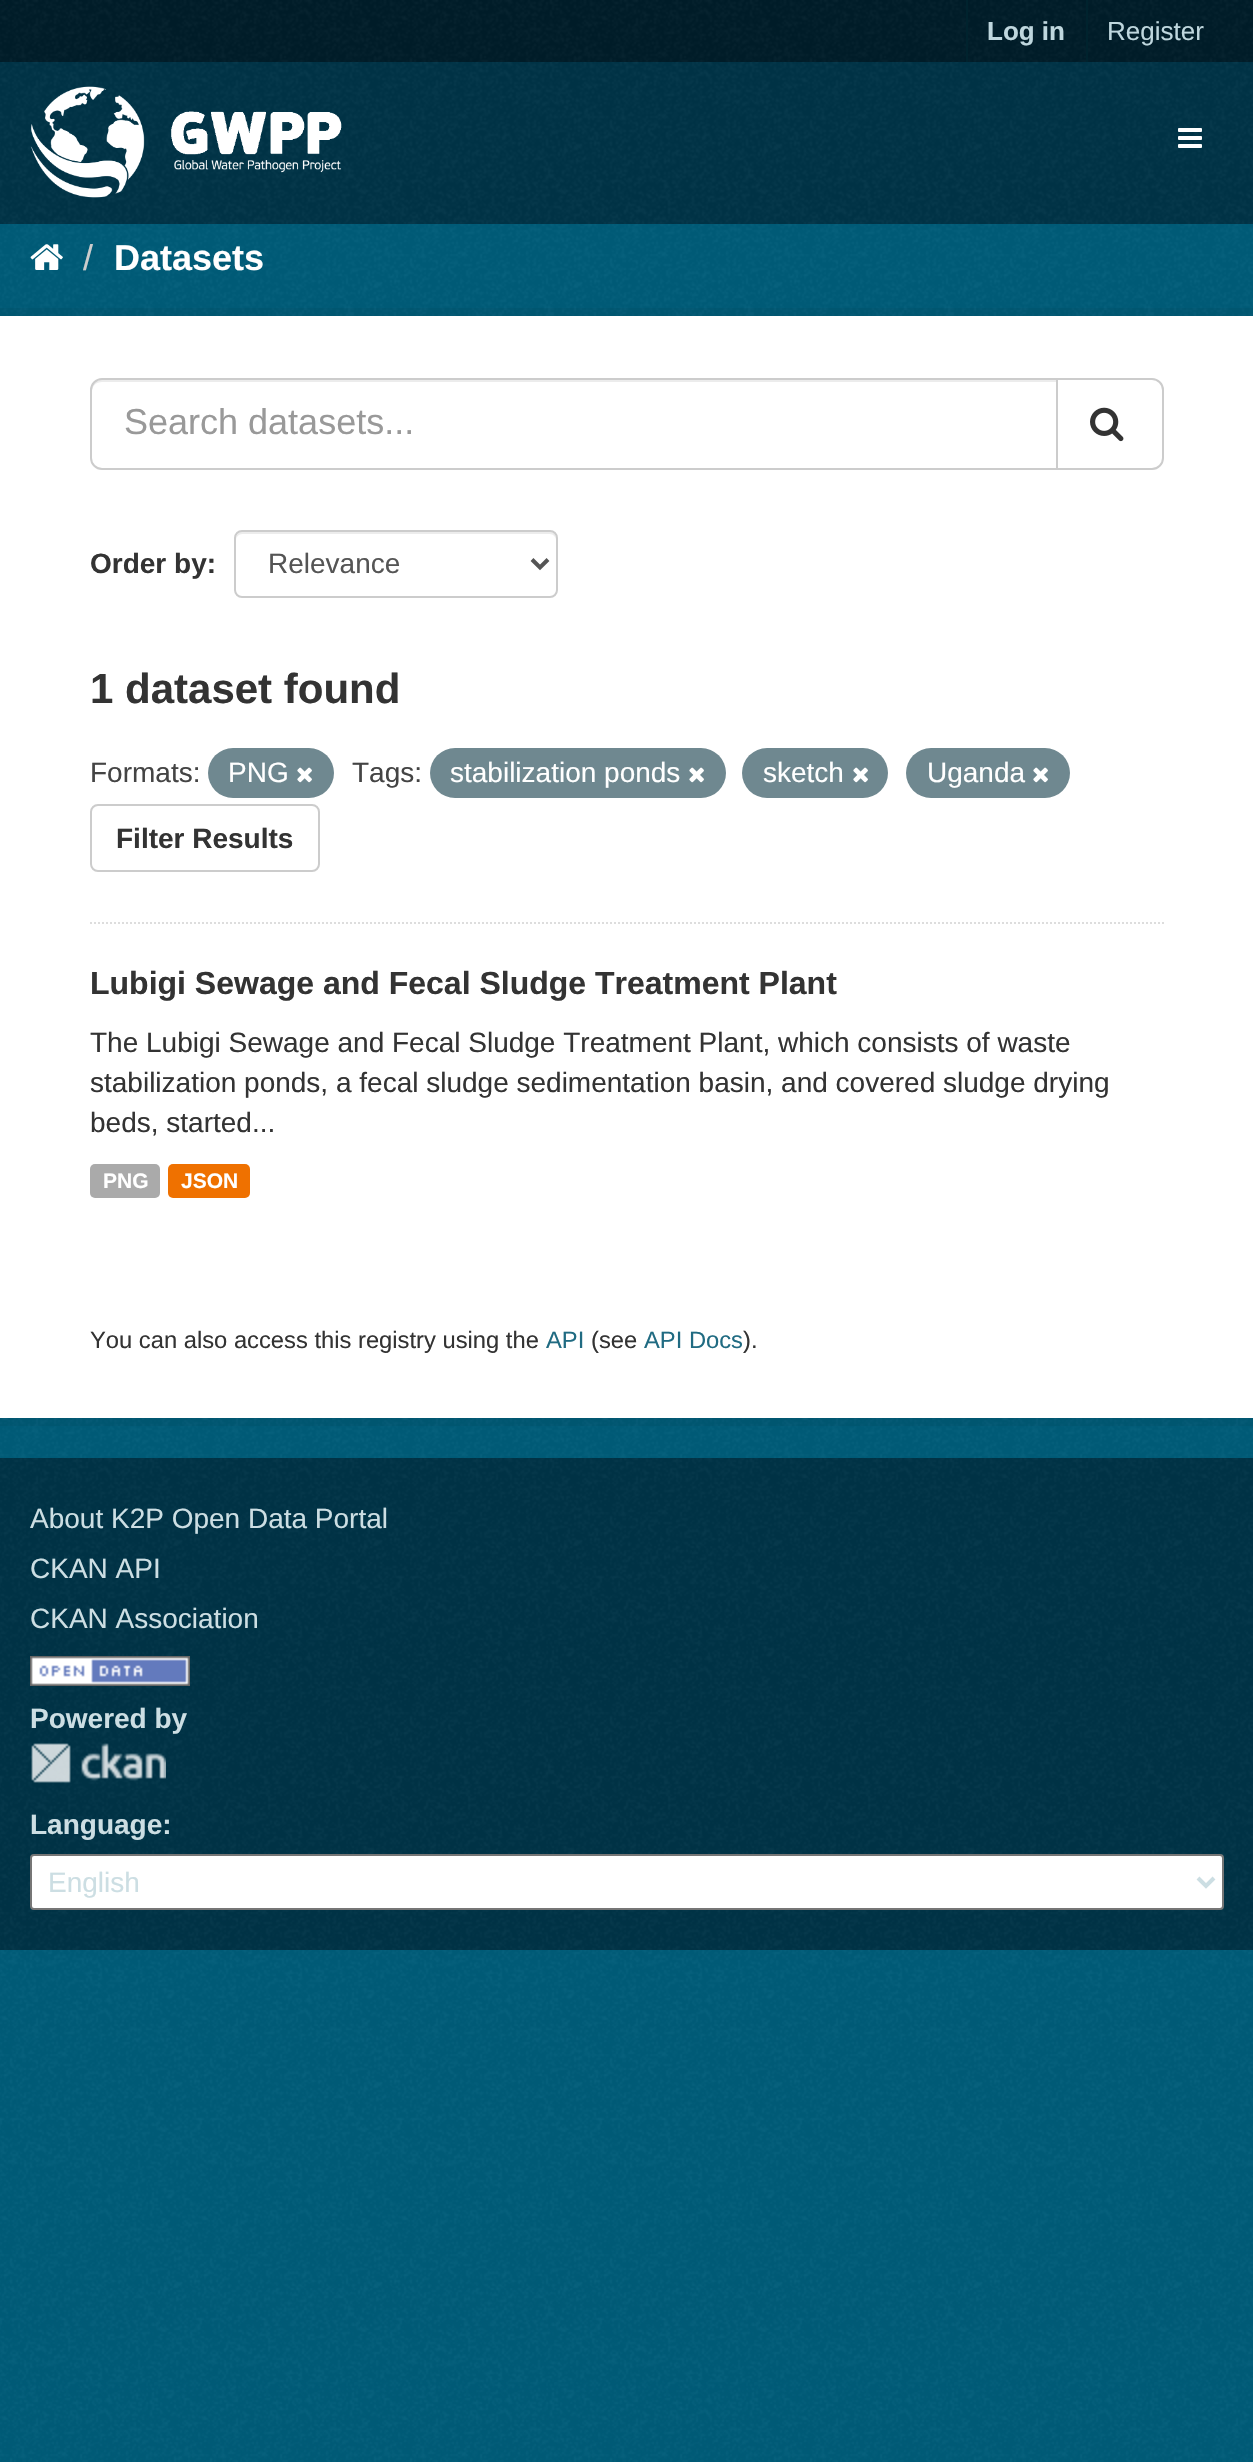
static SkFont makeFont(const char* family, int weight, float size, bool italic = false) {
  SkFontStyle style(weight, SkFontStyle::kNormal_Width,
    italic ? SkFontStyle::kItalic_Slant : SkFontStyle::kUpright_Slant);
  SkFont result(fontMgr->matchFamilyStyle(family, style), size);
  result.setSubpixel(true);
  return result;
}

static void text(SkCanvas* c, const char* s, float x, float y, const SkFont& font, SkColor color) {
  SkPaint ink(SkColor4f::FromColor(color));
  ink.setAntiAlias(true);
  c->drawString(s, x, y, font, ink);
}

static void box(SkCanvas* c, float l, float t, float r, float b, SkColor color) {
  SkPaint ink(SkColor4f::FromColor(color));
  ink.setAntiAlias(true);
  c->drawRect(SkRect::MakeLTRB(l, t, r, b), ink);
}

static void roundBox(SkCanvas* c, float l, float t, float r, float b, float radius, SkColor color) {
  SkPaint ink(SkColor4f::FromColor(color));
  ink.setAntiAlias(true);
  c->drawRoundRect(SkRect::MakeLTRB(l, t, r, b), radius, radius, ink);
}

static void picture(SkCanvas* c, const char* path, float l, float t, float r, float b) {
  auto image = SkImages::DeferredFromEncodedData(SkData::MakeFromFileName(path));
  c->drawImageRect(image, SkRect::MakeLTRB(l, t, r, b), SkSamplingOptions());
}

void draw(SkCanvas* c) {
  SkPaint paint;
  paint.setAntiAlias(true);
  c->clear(0xff005d7a);
  picture(c, "img_01.png", 0, 224, 1253, 2462);
  box(c, 0, 0, 1253, 62, 0xff001d29);
  picture(c, "img_02.png", 0, 0, 1253, 62);
  box(c, 966, 0, 968, 62, 0xff00232e);
  SkFont face1 = makeFont("Liberation Sans", 700, 26);
  text(c, "Log in", 987, 40, face1, 0xffbfd7de);
  box(c, 1086, 0, 1088, 62, 0xff00232e);
  SkFont face2 = makeFont("Liberation Sans", 400, 26);
  text(c, "Register", 1107, 40, face2, 0xffbfd7de);
  box(c, 0, 62, 1253, 224, 0xff003347);
  picture(c, "img_03.png", 0, 62, 1253, 224);
  picture(c, "img_04.png", 30, 86, 342, 198);
  picture(c, "img_05.png", 1178, 128, 1202, 148);
  picture(c, "img_06.png", 30, 244, 63, 270);
  SkFont face3 = makeFont("Liberation Sans", 400, 36);
  text(c, "/", 83, 270, face3, 0xffcccccc);
  SkFont face4 = makeFont("Liberation Sans", 700, 36);
  text(c, "Datasets", 114, 270, face4, 0xffffffff);
  paint.setStyle(SkPaint::kStroke_Style);
  paint.setStrokeWidth(8);
  paint.setColor(0x0d000000);
  c->drawRect(SkRect::MakeLTRB(-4, 312, 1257, 1422), paint);
  box(c, 0, 316, 1253, 1418, 0xffffffff);
  paint.setStrokeWidth(2);
  paint.setColor(0xffdddddd);
  paint.setPathEffect(SkDashPathEffect::Make({{2, 2}}, 0));
  c->drawPath(SkPathBuilder().moveTo(90, 923).lineTo(1164, 923).detach(), paint);
  paint.setPathEffect(nullptr);
  paint.setStyle(SkPaint::kFill_Style);
  paint.setColor(0xffececec);
  c->drawPath(SkPathBuilder().moveTo(102, 382).lineTo(1056, 382).lineTo(1056, 380).lineTo(102, 380).cubicTo(96, 380, 92, 384, 92, 390).lineTo(92, 392).cubicTo(92, 386, 96, 382, 102, 382).close().detach(), paint);
  paint.setStyle(SkPaint::kStroke_Style);
  paint.setColor(0xffcccccc);
  c->drawPath(SkPathBuilder().moveTo(102, 379).lineTo(1057, 379).lineTo(1057, 469).lineTo(102, 469).cubicTo(96, 469, 91, 464, 91, 458).lineTo(91, 390).cubicTo(91, 384, 96, 379, 102, 379).close().detach(), paint);
  text(c, "Search datasets...", 124, 434, face3, 0xff999999);
  paint.setStyle(SkPaint::kFill_Style);
  paint.setColor(0xffffffff);
  c->drawPath(SkPathBuilder().moveTo(1057, 379).lineTo(1152, 379).cubicTo(1158, 379, 1163, 384, 1163, 390).lineTo(1163, 458).cubicTo(1163, 464, 1158, 469, 1152, 469).lineTo(1057, 469).close().detach(), paint);
  paint.setStyle(SkPaint::kStroke_Style);
  paint.setColor(0xffcccccc);
  c->drawPath(SkPathBuilder().moveTo(1057, 379).lineTo(1152, 379).cubicTo(1158, 379, 1163, 384, 1163, 390).lineTo(1163, 458).cubicTo(1163, 464, 1158, 469, 1152, 469).lineTo(1057, 469).close().detach(), paint);
  picture(c, "img_07.png", 1090, 407, 1124, 442);
  SkFont face5 = makeFont("Liberation Sans", 700, 28);
  text(c, "Order by:", 90, 573, face5, 0xff333333);
  paint.setStyle(SkPaint::kFill_Style);
  paint.setColor(0xffececec);
  c->drawPath(SkPathBuilder().moveTo(242, 534).lineTo(550, 534).cubicTo(553, 534, 556, 537, 556, 540).cubicTo(556, 536, 555, 532, 550, 532).lineTo(241, 532).cubicTo(237, 533, 236, 537, 236, 540).cubicTo(236, 537, 239, 534, 242, 534).close().detach(), paint);
  paint.setStyle(SkPaint::kStroke_Style);
  paint.setColor(0xffcccccc);
  c->drawRoundRect(SkRect::MakeLTRB(235, 531, 557, 597), 7, 7, paint);
  paint.setStrokeWidth(4);
  paint.setColor(0xff555555);
  c->drawPath(SkPathBuilder().moveTo(532, 559.5f).lineTo(540, 567.5f).lineTo(548, 559.5f).detach(), paint);
  SkFont face6 = makeFont("Liberation Sans", 400, 28);
  text(c, "Relevance", 268, 573, face6, 0xff555555);
  SkFont face7 = makeFont("Liberation Sans", 700, 42);
  text(c, "1 dataset found", 90, 703, face7, 0xff333333);
  text(c, "Formats:", 90, 782, face6, 0xff444444);
  roundBox(c, 208, 748, 334, 798, 25, 0xff6f8890);
  text(c, "PNG", 228, 782, face6, 0xffffffff);
  picture(c, "img_08.png", 297, 767, 312, 783);
  text(c, "Tags:", 352, 782, face6, 0xff444444);
  roundBox(c, 430, 748, 726, 798, 25, 0xff6f8890);
  text(c, "stabilization ponds", 450, 782, face6, 0xffffffff);
  picture(c, "img_08.png", 689, 767, 704, 783);
  roundBox(c, 742, 748, 888, 798, 25, 0xff6f8890);
  text(c, "sketch", 763, 782, face6, 0xffffffff);
  picture(c, "img_08.png", 853, 767, 868, 783);
  roundBox(c, 906, 748, 1070, 798, 25, 0xff6f8890);
  text(c, "Uganda", 927, 782, face6, 0xffffffff);
  picture(c, "img_08.png", 1033, 767, 1048, 783);
  paint.setStrokeWidth(2);
  paint.setColor(0xffcccccc);
  c->drawRoundRect(SkRect::MakeLTRB(91, 805, 319, 871), 7, 7, paint);
  text(c, "Filter Results", 116, 848, face5, 0xff333333);
  SkFont face8 = makeFont("Liberation Sans", 700, 32);
  text(c, "Lubigi Sewage and Fecal Sludge Treatment Plant", 90, 994, face8, 0xff333333);
  text(c, "The Lubigi Sewage and Fecal Sludge Treatment Plant, which consists of waste", 90, 1052, face6, 0xff333333);
  text(c, "stabilization ponds, a fecal sludge sedimentation basin, and covered sludge drying", 90, 1092, face6, 0xff333333);
  text(c, "beds, started...", 90, 1132, face6, 0xff333333);
  roundBox(c, 90, 1164, 160, 1198, 5, 0xffaaaaaa);
  SkFont face9 = makeFont("Liberation Sans", 700, 21);
  text(c, "PNG", 103, 1188, face9, 0xffffffff);
  roundBox(c, 168, 1164, 250, 1198, 5, 0xffef7100);
  text(c, "JSON", 181, 1188, face9, 0xffffffff);
  SkFont face10 = makeFont("Liberation Sans", 400, 23.75f);
  text(c, "You can also access this registry using the", 90, 1348, face10, 0xff333333);
  text(c, "API", 546, 1348, face10, 0xff206b82);
  text(c, "(see", 591, 1348, face10, 0xff333333);
  text(c, "API Docs", 644, 1348, face10, 0xff206b82);
  text(c, ").", 743, 1348, face10, 0xff333333);
  box(c, 0, 1458, 1253, 1950, 0xff003347);
  picture(c, "img_09.png", 0, 1458, 1253, 1950);
  text(c, "About K2P Open Data Portal", 30, 1528, face6, 0xffccdee3);
  text(c, "CKAN API", 30, 1578, face6, 0xffccdee3);
  text(c, "CKAN Association", 30, 1628, face6, 0xffccdee3);
  picture(c, "img_10.png", 30, 1656, 190, 1686);
  text(c, "Powered by", 30, 1728, face5, 0xffccdee3);
  picture(c, "img_11.png", 31, 1743, 166, 1783);
  text(c, "Language:", 30, 1834, face5, 0xffccdee3);
  paint.setStyle(SkPaint::kFill_Style);
  paint.setColor(0xffffffff);
  c->drawRoundRect(SkRect::MakeLTRB(31, 1855, 1223, 1909), 3, 3, paint);
  paint.setStyle(SkPaint::kStroke_Style);
  paint.setColor(0xff767676);
  c->drawRoundRect(SkRect::MakeLTRB(31, 1855, 1223, 1909), 3, 3, paint);
  paint.setStrokeWidth(4);
  paint.setColor(0xffccdee3);
  c->drawPath(SkPathBuilder().moveTo(1198, 1878).lineTo(1206, 1886).lineTo(1214, 1878).detach(), paint);
  text(c, "English", 48, 1892, face6, 0xffccdee3);
}
